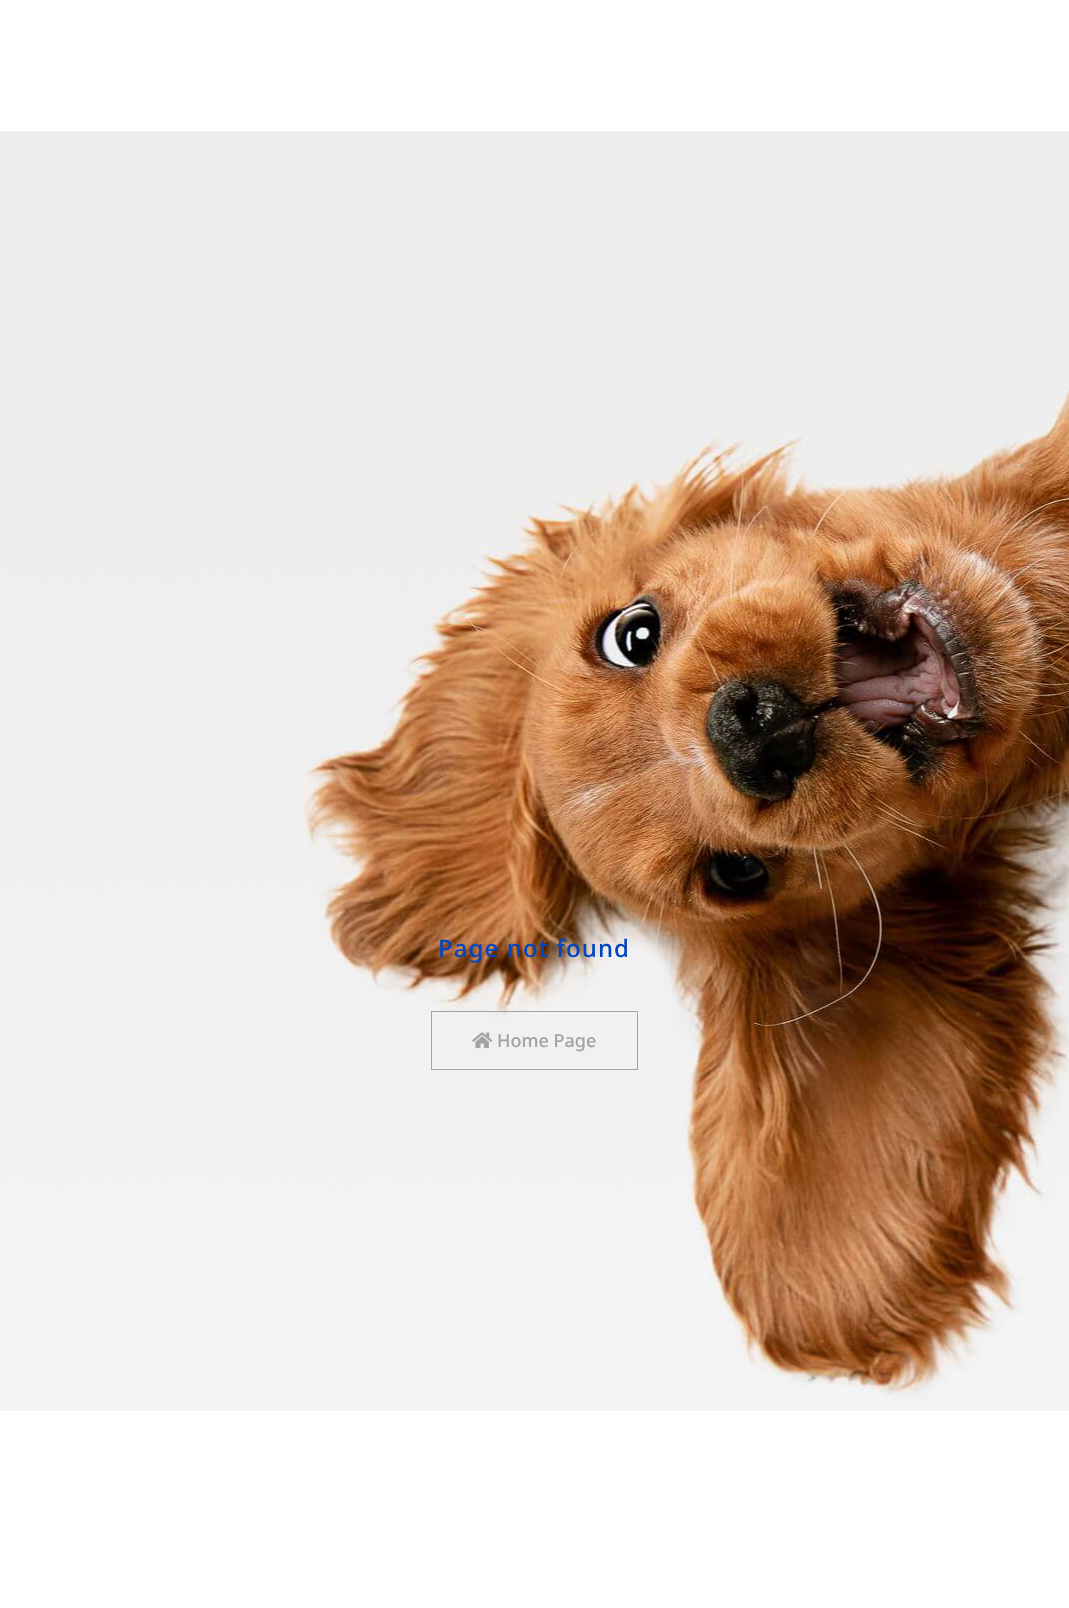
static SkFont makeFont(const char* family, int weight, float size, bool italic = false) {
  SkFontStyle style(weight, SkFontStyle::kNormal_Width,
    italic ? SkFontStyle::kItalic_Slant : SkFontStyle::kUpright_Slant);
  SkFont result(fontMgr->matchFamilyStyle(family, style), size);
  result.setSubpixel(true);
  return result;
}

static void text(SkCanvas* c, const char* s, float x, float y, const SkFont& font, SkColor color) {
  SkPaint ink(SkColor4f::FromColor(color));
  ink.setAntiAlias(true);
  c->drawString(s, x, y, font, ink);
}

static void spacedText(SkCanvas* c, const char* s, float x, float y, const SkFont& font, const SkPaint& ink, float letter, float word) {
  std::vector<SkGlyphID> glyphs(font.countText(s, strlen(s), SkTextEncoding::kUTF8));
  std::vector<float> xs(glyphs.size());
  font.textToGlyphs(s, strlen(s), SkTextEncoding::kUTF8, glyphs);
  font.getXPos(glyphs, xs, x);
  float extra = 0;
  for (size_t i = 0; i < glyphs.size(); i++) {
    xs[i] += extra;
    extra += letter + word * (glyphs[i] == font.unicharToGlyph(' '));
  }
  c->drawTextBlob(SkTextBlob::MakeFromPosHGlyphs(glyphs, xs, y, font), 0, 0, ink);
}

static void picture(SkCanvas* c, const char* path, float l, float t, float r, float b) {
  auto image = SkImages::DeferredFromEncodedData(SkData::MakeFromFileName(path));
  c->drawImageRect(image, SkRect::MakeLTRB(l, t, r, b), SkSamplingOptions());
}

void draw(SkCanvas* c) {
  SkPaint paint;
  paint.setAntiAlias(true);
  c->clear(0xffffffff);
  picture(c, "img_01.png", 0, 131, 1069, 1411);
  SkFont face1 = makeFont("Noto Sans", 500, 24);
  paint.setColor(0xff0345bf);
  spacedText(c, "Page not found", 438, 957, face1, paint, 1.1f, 0);
  paint.setStyle(SkPaint::kStroke_Style);
  paint.setStrokeWidth(1);
  paint.setColor(0xffa3a3a3);
  c->drawRect(SkRect::MakeLTRB(431.5f, 1011.5f, 637.5f, 1069.5f), paint);
  picture(c, "img_02.png", 472, 1032, 493, 1049);
  SkFont face2 = makeFont("Noto Sans", 500, 18);
  text(c, "Home Page", 497, 1047, face2, 0xffa3a3a3);
}
